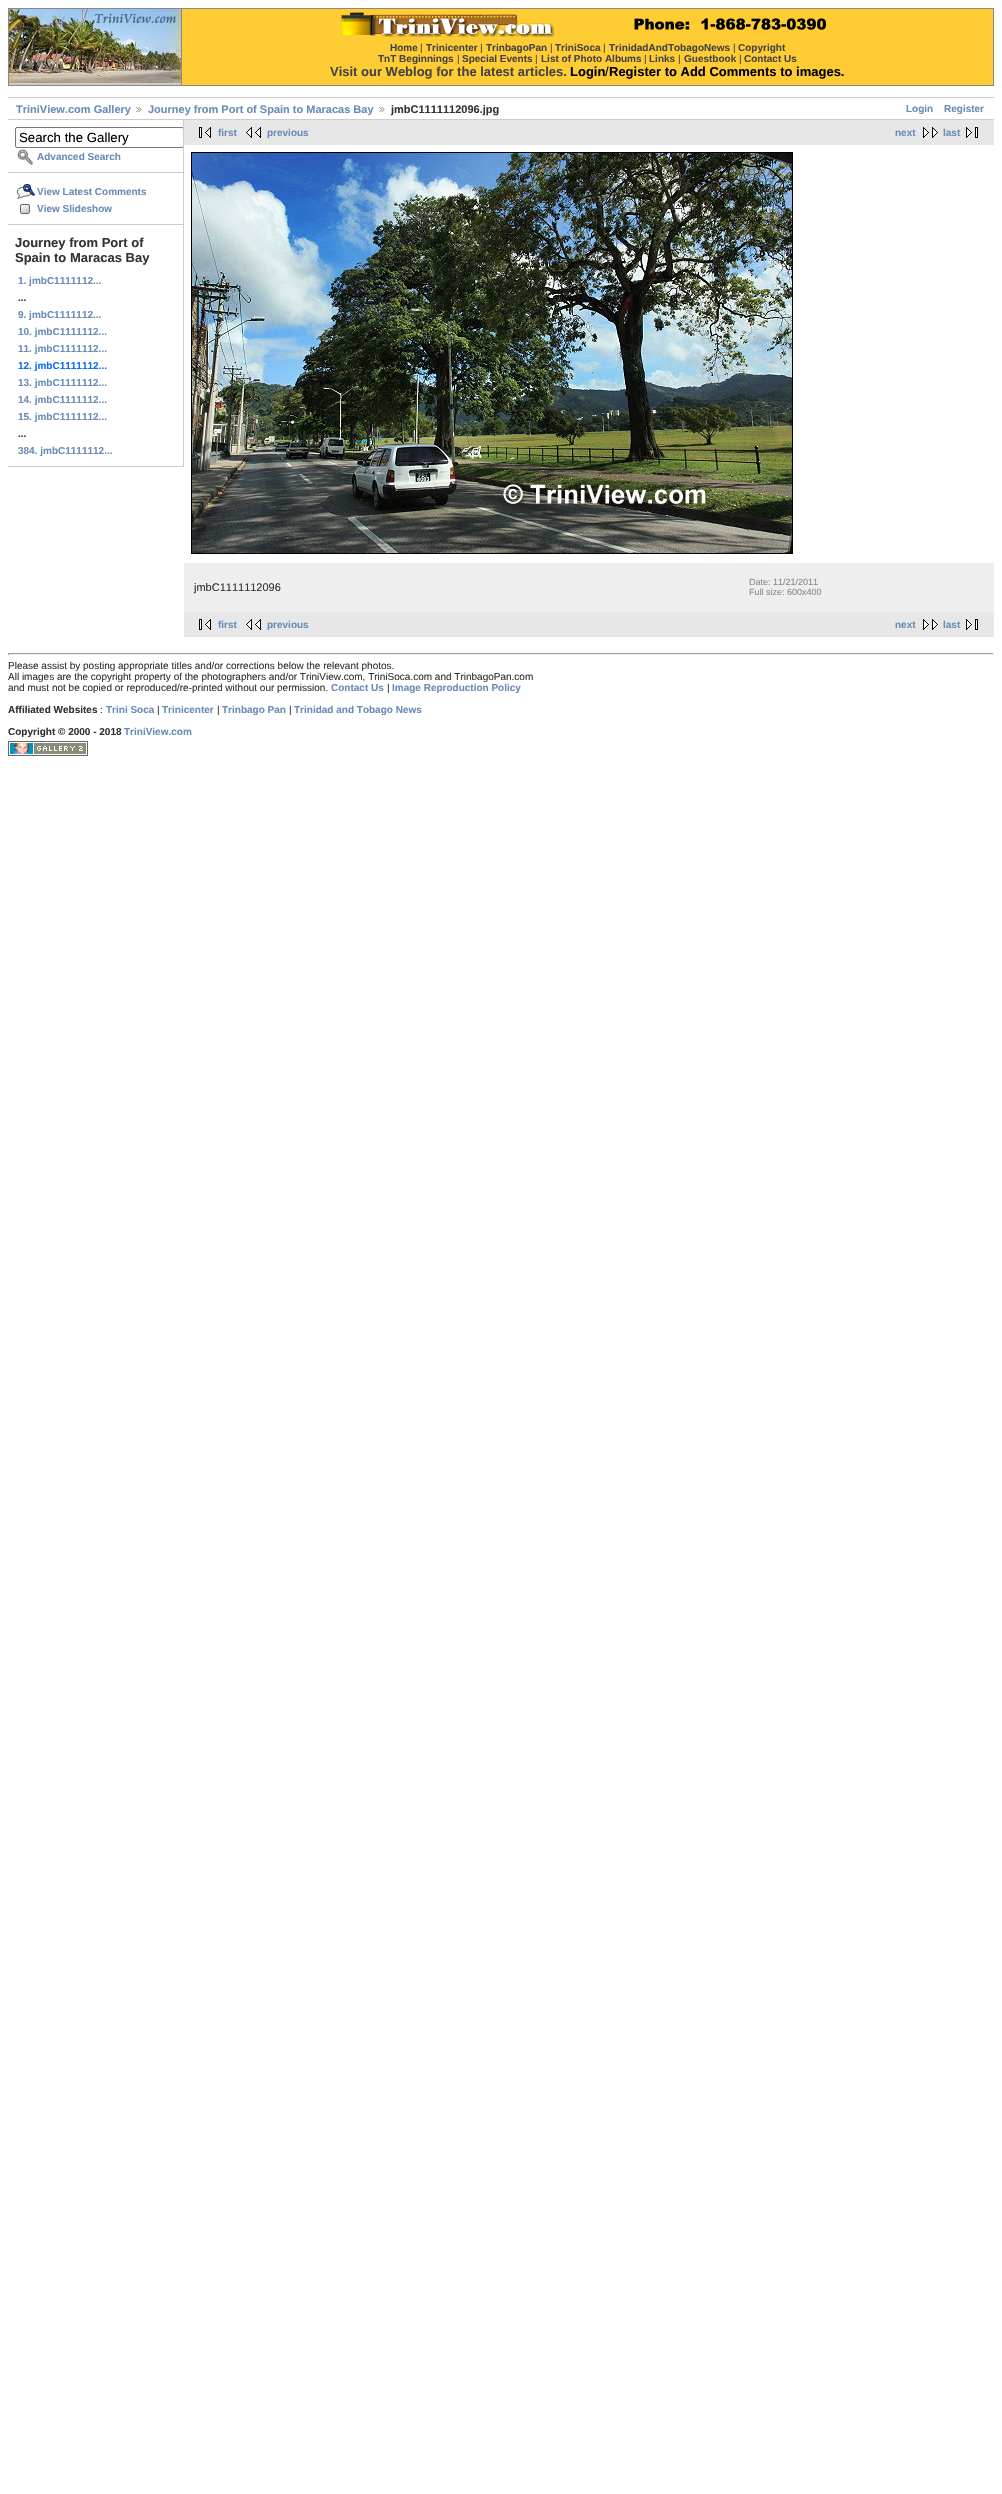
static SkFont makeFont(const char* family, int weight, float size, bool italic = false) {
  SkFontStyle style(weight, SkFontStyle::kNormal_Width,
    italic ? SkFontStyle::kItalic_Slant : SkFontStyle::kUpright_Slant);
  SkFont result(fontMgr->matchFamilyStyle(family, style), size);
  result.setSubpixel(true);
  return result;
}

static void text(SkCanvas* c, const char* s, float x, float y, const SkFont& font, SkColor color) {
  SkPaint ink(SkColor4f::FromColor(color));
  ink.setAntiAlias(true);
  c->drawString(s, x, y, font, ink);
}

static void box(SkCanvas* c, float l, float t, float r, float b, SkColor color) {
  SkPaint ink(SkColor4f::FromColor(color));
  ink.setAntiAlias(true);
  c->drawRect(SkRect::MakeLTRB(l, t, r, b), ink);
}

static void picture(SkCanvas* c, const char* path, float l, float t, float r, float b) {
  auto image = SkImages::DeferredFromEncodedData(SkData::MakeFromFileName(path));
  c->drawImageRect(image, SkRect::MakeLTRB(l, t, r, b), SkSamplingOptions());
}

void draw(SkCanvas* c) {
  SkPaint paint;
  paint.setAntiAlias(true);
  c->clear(0xffffffff);
  box(c, 8, 8, 994, 86, 0xff888888);
  box(c, 9, 83, 181, 85, 0xffcccccc);
  picture(c, "img_01.png", 9, 9, 181, 83);
  box(c, 182, 9, 993, 85, 0xffffcc33);
  picture(c, "img_02.png", 339, 12, 827, 37);
  SkFont face1 = makeFont("Liberation Sans", 700, 10);
  text(c, "Home", 390, 51, face1, 0xff444444);
  SkFont face2 = makeFont("Liberation Sans", 400, 10);
  text(c, "|", 420, 51, face2, 0xff444444);
  text(c, "Trinicenter", 426, 51, face1, 0xff444444);
  text(c, "|", 480, 51, face2, 0xff444444);
  text(c, "TrinbagoPan", 486, 51, face1, 0xff444444);
  text(c, "|", 550, 51, face2, 0xff444444);
  text(c, "TriniSoca", 555, 51, face1, 0xff444444);
  text(c, "|", 603, 51, face2, 0xff444444);
  text(c, "TrinidadAndTobagoNews", 609, 51, face1, 0xff444444);
  text(c, "|", 733, 51, face2, 0xff444444);
  text(c, "Copyright", 738, 51, face1, 0xff444444);
  text(c, "TnT Beginnings", 378, 62, face1, 0xff444444);
  text(c, "|", 457, 62, face2, 0xff444444);
  text(c, "Special Events", 462, 62, face1, 0xff444444);
  text(c, "|", 535, 62, face2, 0xff444444);
  text(c, "List of Photo Albums", 541, 62, face1, 0xff444444);
  text(c, "|", 644, 62, face2, 0xff444444);
  text(c, "Links", 649, 62, face1, 0xff444444);
  text(c, "|", 678, 62, face2, 0xff444444);
  text(c, "Guestbook", 684, 62, face1, 0xff444444);
  text(c, "|", 739, 62, face2, 0xff444444);
  text(c, "Contact Us", 744, 62, face1, 0xff444444);
  SkFont face3 = makeFont("Liberation Sans", 700, 13);
  text(c, "Visit our Weblog for the latest articles.", 330, 76, face3, 0xff444444);
  text(c, "Login", 570, 76, face3, 0xff000000);
  SkFont face4 = makeFont("Liberation Sans", 400, 13);
  text(c, "/", 605, 76, face4, 0xff000000);
  text(c, "Register to Add Comments to images.", 609, 76, face3, 0xff000000);
  box(c, 8, 97, 994, 98, 0xffcccccc);
  box(c, 8, 119, 994, 120, 0xffcccccc);
  SkFont face5 = makeFont("Liberation Sans", 700, 11);
  text(c, "TriniView.com Gallery", 16, 113, face5, 0xff6b8cb7);
  picture(c, "img_03.png", 136, 107, 142, 112);
  text(c, "Journey from Port of Spain to Maracas Bay", 148, 113, face5, 0xff6b8cb7);
  picture(c, "img_03.png", 379, 107, 385, 112);
  text(c, "jmbC1111112096.jpg", 391, 113, face5, 0xff333333);
  text(c, "Login", 906, 112, face1, 0xff6b8cb7);
  text(c, "Register", 944, 112, face1, 0xff6b8cb7);
  box(c, 183, 120, 184, 467, 0xffcccccc);
  box(c, 8, 172, 183, 173, 0xffcccccc);
  c->save();
  c->clipRect(SkRect::MakeLTRB(8, 120, 183, 467));
  paint.setStyle(SkPaint::kStroke_Style);
  paint.setStrokeWidth(1);
  paint.setColor(0xff767676);
  c->drawRoundRect(SkRect::MakeLTRB(15.5f, 127.5f, 183.5f, 147.5f), 1.5f, 1.5f, paint);
  c->restore();
  SkFont face6 = makeFont("Liberation Sans", 400, 13.25f);
  text(c, "Search the Gallery", 19, 142, face6, 0xff000000);
  picture(c, "img_04.png", 17, 149, 33, 165);
  text(c, "Advanced Search", 37, 160, face1, 0xff6b8cb7);
  box(c, 8, 224, 183, 225, 0xffcccccc);
  picture(c, "img_05.png", 16, 184, 35, 199);
  text(c, "View Latest Comments", 37, 195, face1, 0xff6b8cb7);
  picture(c, "img_06.png", 20, 204, 30, 214);
  text(c, "View Slideshow", 37, 212, face1, 0xff6b8cb7);
  box(c, 8, 466, 183, 467, 0xffcccccc);
  text(c, "Journey from Port of", 15, 247, face3, 0xff333333);
  text(c, "Spain to Maracas Bay", 15, 262, face3, 0xff333333);
  text(c, "1. jmbC1111112...", 18, 284, face1, 0xff6b8cb7);
  text(c, "...", 18, 301, face1, 0xff333333);
  text(c, "9. jmbC1111112...", 18, 318, face1, 0xff6b8cb7);
  text(c, "10. jmbC1111112...", 18, 335, face1, 0xff6b8cb7);
  text(c, "11. jmbC1111112...", 18, 352, face1, 0xff6b8cb7);
  text(c, "12. jmbC1111112...", 18, 369, face1, 0xff0b6cff);
  text(c, "13. jmbC1111112...", 18, 386, face1, 0xff6b8cb7);
  text(c, "14. jmbC1111112...", 18, 403, face1, 0xff6b8cb7);
  text(c, "15. jmbC1111112...", 18, 420, face1, 0xff6b8cb7);
  text(c, "...", 18, 437, face1, 0xff333333);
  text(c, "384. jmbC1111112...", 18, 454, face1, 0xff6b8cb7);
  box(c, 184, 120, 994, 145, 0xffe7e7e7);
  picture(c, "img_07.png", 199, 127, 211, 138);
  text(c, "first", 218, 136, face1, 0xff6b8cb7);
  picture(c, "img_08.png", 246, 127, 261, 138);
  text(c, "previous", 267, 136, face1, 0xff6b8cb7);
  text(c, "next", 895, 136, face1, 0xff6b8cb7);
  picture(c, "img_09.png", 923, 127, 938, 138);
  text(c, "last", 943, 136, face1, 0xff6b8cb7);
  picture(c, "img_10.png", 966, 127, 978, 138);
  paint.setColor(0xff000000);
  c->drawRect(SkRect::MakeLTRB(191.5f, 152.5f, 792.5f, 553.5f), paint);
  picture(c, "img_11.png", 192, 153, 792, 553);
  box(c, 184, 563, 994, 612, 0xffeeeeee);
  SkFont face7 = makeFont("Liberation Sans", 400, 11);
  text(c, "jmbC1111112096", 194, 591, face7, 0xff333333);
  SkFont face8 = makeFont("Liberation Sans", 400, 9);
  text(c, "Date: 11/21/2011", 749, 585, face8, 0xff888888);
  text(c, "Full size: 600x400", 749, 595, face8, 0xff888888);
  box(c, 184, 612, 994, 637, 0xffe7e7e7);
  picture(c, "img_07.png", 199, 619, 211, 630);
  text(c, "first", 218, 628, face1, 0xff6b8cb7);
  picture(c, "img_08.png", 246, 619, 261, 630);
  text(c, "previous", 267, 628, face1, 0xff6b8cb7);
  text(c, "next", 895, 628, face1, 0xff6b8cb7);
  picture(c, "img_09.png", 923, 619, 938, 630);
  text(c, "last", 943, 628, face1, 0xff6b8cb7);
  picture(c, "img_10.png", 966, 619, 978, 630);
  box(c, 8, 653, 994, 654, 0xff9f9f9f);
  box(c, 993, 653, 994, 655, 0xffeeeeee);
  box(c, 8, 654, 994, 655, 0xffeeeeee);
  box(c, 8, 653, 9, 655, 0xff9f9f9f);
  text(c, "Please assist by posting appropriate titles and/or corrections below the relevant photos.", 8, 669, face2, 0xff333333);
  text(c, "All images are the copyright property of the photographers and/or TriniView.com, TriniSoca.com and TrinbagoPan.com", 8, 680, face2, 0xff333333);
  text(c, "and must not be copied or reproduced/re-printed without our permission.", 8, 691, face2, 0xff333333);
  text(c, "Contact Us", 331, 691, face1, 0xff6b8cb7);
  text(c, "|", 387, 691, face2, 0xff333333);
  text(c, "Image Reproduction Policy", 392, 691, face1, 0xff6b8cb7);
  text(c, "Affiliated Websites", 8, 713, face1, 0xff333333);
  text(c, ":", 100, 713, face2, 0xff333333);
  text(c, "Trini Soca", 106, 713, face1, 0xff6b8cb7);
  text(c, "|", 157, 713, face2, 0xff333333);
  text(c, "Trinicenter", 162, 713, face1, 0xff6b8cb7);
  text(c, "|", 217, 713, face2, 0xff333333);
  text(c, "Trinbago Pan", 222, 713, face1, 0xff6b8cb7);
  text(c, "|", 289, 713, face2, 0xff333333);
  text(c, "Trinidad and Tobago News", 294, 713, face1, 0xff6b8cb7);
  text(c, "Copyright © 2000 - 2018", 8, 735, face1, 0xff333333);
  text(c, "TriniView.com", 124, 735, face1, 0xff6b8cb7);
  picture(c, "img_12.png", 8, 741, 88, 756);
}
